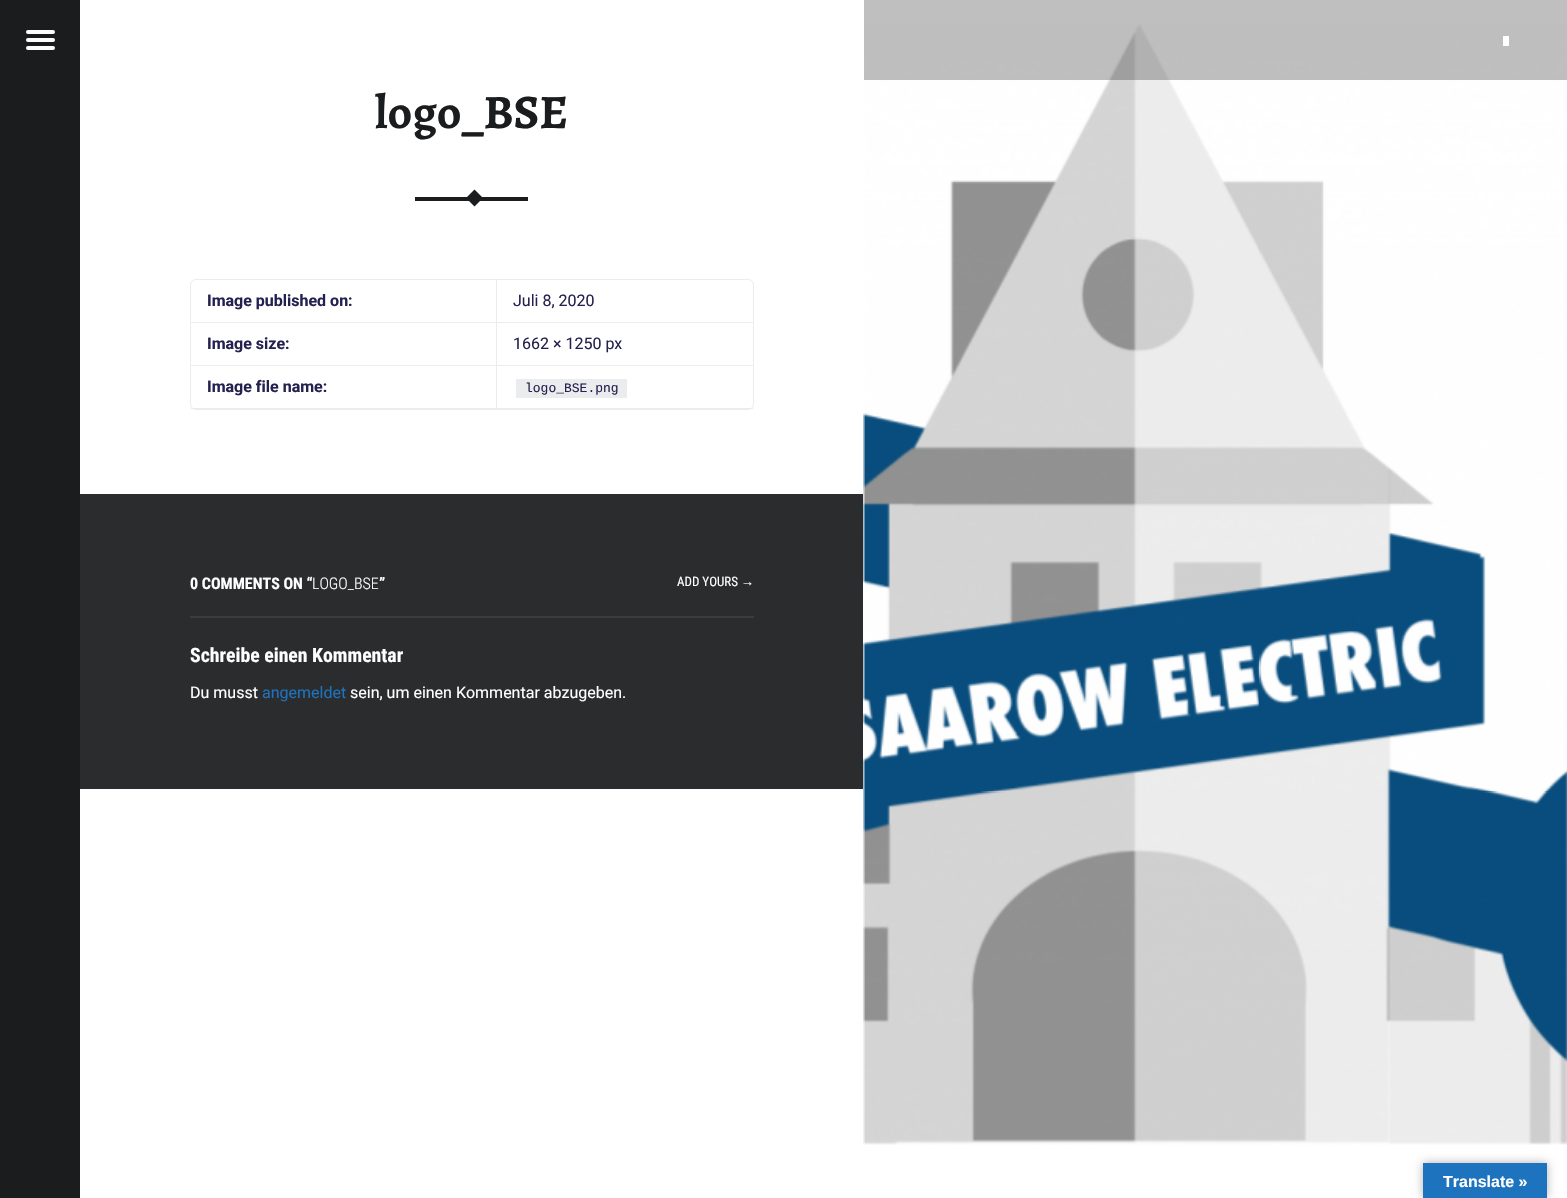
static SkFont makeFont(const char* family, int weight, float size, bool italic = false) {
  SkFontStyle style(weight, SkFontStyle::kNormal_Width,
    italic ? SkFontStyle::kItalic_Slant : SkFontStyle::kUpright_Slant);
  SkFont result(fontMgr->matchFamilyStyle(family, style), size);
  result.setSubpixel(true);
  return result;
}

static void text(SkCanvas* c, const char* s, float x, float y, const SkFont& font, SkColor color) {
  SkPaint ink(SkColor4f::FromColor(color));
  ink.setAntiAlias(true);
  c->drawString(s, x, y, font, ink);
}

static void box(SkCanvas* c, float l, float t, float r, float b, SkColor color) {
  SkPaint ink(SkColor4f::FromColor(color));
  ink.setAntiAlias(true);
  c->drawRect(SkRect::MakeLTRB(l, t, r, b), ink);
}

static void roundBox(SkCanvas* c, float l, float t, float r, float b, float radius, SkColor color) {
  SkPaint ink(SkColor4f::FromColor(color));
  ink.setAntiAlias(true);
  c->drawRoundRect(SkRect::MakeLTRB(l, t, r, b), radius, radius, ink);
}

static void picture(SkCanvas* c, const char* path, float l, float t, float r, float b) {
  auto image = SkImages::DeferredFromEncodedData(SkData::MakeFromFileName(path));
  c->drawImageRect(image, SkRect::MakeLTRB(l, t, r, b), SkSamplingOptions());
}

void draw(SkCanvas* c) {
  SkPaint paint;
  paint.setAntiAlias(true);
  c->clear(0xffffffff);
  box(c, 0, 0, 80, 1198, 0xff1a1c1e);
  roundBox(c, 26, 30, 55, 34, 2, 0xffffffff);
  roundBox(c, 26, 38, 55, 42, 2, 0xffffffff);
  roundBox(c, 26, 46, 55, 50, 2, 0xffffffff);
  picture(c, "img_01.png", 863, 24, 1567, 1145);
  box(c, 864, 0, 1567, 80, 0x40000000);
  box(c, 1503, 36, 1509, 46, 0xffffffff);
  SkFont face1 = makeFont("Alegreya", 700, 48);
  text(c, "logo_BSE", 375, 128, face1, 0xff1a1c1e);
  box(c, 415, 197, 528, 201, 0xff1a1c1e);
  paint.setColor(0xff1a1c1e);
  c->drawPath(SkPathBuilder().moveTo(474.5f, 189.5f).lineTo(483, 198).lineTo(474.5f, 206.5f).lineTo(466, 198).close().detach(), paint);
  paint.setStyle(SkPaint::kStroke_Style);
  paint.setStrokeWidth(1);
  paint.setColor(0xffeaecee);
  c->drawRoundRect(SkRect::MakeLTRB(190.5f, 279.5f, 753.5f, 409.5f), 5.5f, 5.5f, paint);
  box(c, 191, 322, 753, 323, 0xffeaecee);
  SkFont face2 = makeFont("Roboto", 700, 16);
  text(c, "Image published on:", 207, 306, face2, 0xff24204f);
  box(c, 496, 280, 497, 323, 0xffeaecee);
  SkFont face3 = makeFont("Roboto", 400, 16);
  text(c, "Juli 8, 2020", 513, 306, face3, 0xff24204f);
  box(c, 191, 365, 753, 366, 0xffeaecee);
  text(c, "Image size:", 207, 349, face2, 0xff24204f);
  box(c, 496, 323, 497, 366, 0xffeaecee);
  text(c, "1662 × 1250 px", 513, 349, face3, 0xff24204f);
  box(c, 191, 408, 753, 409, 0xffeaecee);
  text(c, "Image file name:", 207, 392, face2, 0xff24204f);
  box(c, 496, 366, 497, 409, 0xffeaecee);
  box(c, 516, 379, 627, 398, 0xffeaecee);
  SkFont face4 = makeFont("Liberation Mono", 400, 13);
  text(c, "logo_BSE.png", 525, 392, face4, 0xff24204f);
  box(c, 80, 494, 863, 789, 0xff2a2c2e);
  SkFont face5 = makeFont("Roboto Condensed", 700, 16);
  text(c, "0 COMMENTS ON “", 190, 589, face5, 0xffffffff);
  SkFont face6 = makeFont("Roboto Condensed", 300, 16);
  text(c, "LOGO_BSE", 312, 589, face6, 0xffffffff);
  text(c, "”", 379, 589, face5, 0xffffffff);
  SkFont face7 = makeFont("Roboto Condensed", 400, 13);
  text(c, "ADD YOURS", 677, 586, face7, 0xffffffff);
  SkFont face8 = makeFont("Liberation Sans", 400, 13);
  text(c, "→", 741, 586, face8, 0xffffffff);
  box(c, 190, 616, 754, 618, 0xff3a3c3e);
  SkFont face9 = makeFont("Roboto Condensed", 700, 19.75f);
  text(c, "Schreibe einen Kommentar", 190, 662, face9, 0xffffffff);
  text(c, "Du musst", 190, 698, face3, 0xffffffff);
  text(c, "angemeldet", 262, 698, face3, 0xff1e73be);
  text(c, "sein, um einen Kommentar abzugeben.", 350, 698, face3, 0xffffffff);
  paint.setStyle(SkPaint::kFill_Style);
  paint.setColor(0x4d000000);
  paint.setMaskFilter(SkMaskFilter::MakeBlur(kNormal_SkBlurStyle, 4.5f));
  c->drawRect(SkRect::MakeLTRB(1423, 1163, 1547, 1198), paint);
  paint.setMaskFilter(nullptr);
  box(c, 1423, 1163, 1547, 1198, 0xff1e73be);
  SkFont face10 = makeFont("Liberation Sans", 700, 16);
  text(c, "Translate »", 1443, 1187, face10, 0xffffffff);
}
